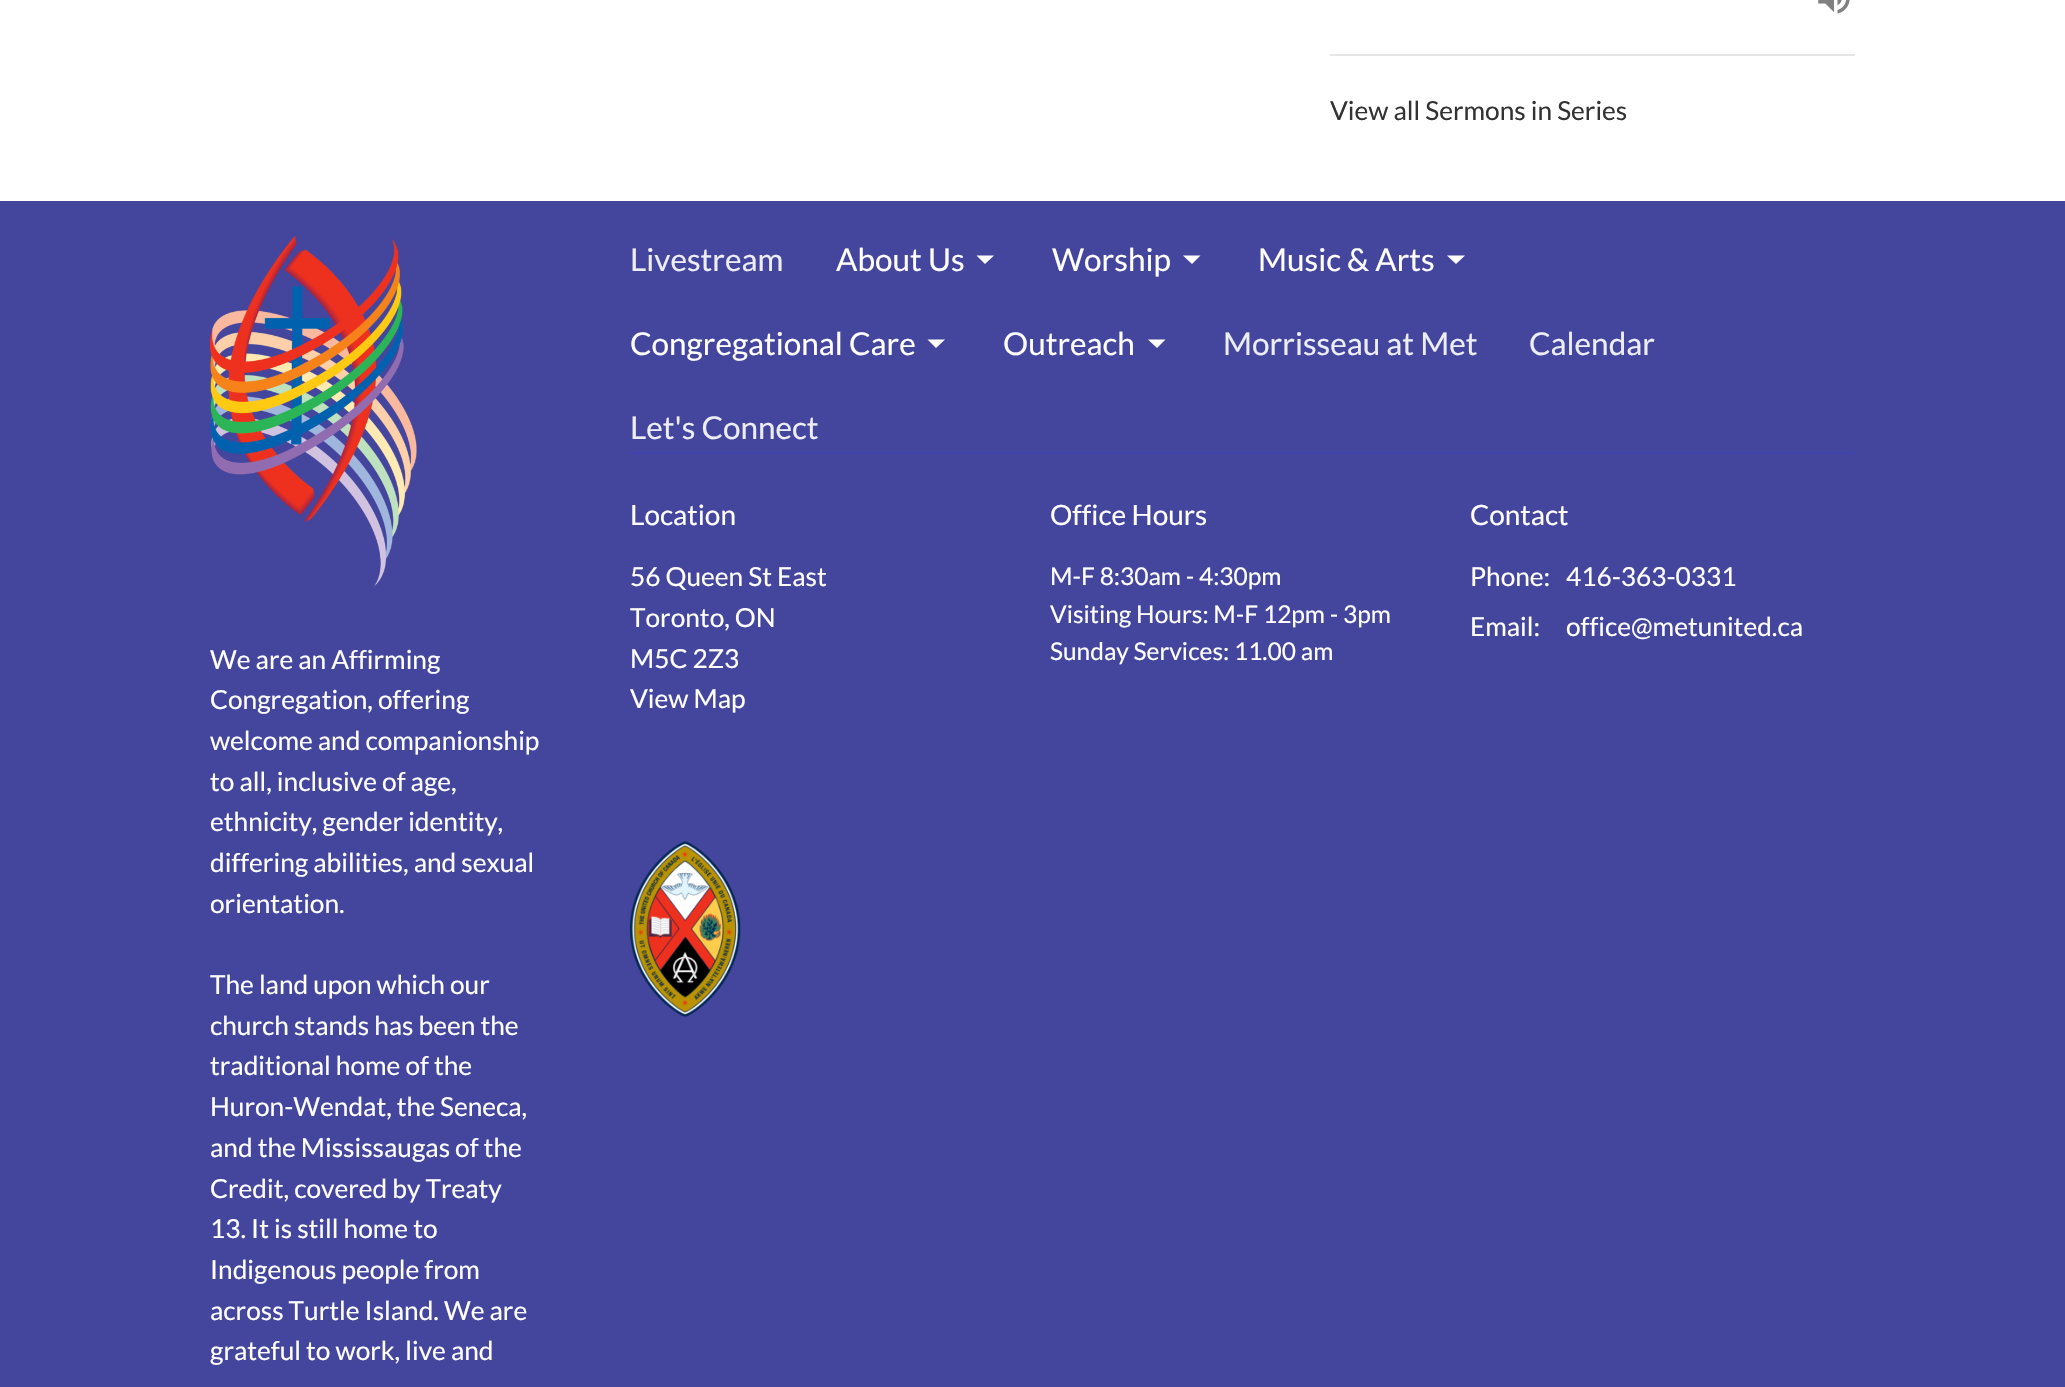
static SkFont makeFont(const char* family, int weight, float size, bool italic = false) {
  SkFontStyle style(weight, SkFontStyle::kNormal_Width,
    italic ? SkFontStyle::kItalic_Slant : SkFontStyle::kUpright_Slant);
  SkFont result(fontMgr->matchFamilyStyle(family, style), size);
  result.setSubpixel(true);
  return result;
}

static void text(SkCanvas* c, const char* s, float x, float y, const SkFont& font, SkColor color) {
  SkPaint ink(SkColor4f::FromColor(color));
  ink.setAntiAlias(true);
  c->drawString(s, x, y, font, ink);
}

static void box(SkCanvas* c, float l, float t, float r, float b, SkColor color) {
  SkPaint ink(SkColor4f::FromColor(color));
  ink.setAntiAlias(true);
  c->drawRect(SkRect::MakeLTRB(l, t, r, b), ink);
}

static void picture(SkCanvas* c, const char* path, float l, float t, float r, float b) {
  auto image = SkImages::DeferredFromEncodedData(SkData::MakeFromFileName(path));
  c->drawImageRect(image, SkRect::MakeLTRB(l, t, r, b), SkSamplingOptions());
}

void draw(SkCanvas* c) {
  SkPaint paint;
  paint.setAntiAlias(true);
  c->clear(0xffffffff);
  box(c, 1330, 54, 1855, 56, 0xffe6e6e6);
  picture(c, "img_01.png", 1818, 0, 1850, 14);
  SkFont face1 = makeFont("Lato", 400, 26.25f);
  text(c, "View all Sermons in Series", 1330, 120, face1, 0xff333333);
  box(c, 0, 201, 2065, 1387, 0xff44469e);
  SkFont face2 = makeFont("Lato", 400, 31.5f);
  text(c, "Livestream", 630, 271, face2, 0xffecedf5);
  text(c, "About Us", 836, 271, face2, 0xffffffff);
  paint.setColor(0xffffffff);
  c->drawPath(SkPathBuilder().moveTo(976.5f, 255.5f).lineTo(985, 264).lineTo(994, 255.5f).close().detach(), paint);
  text(c, "Worship", 1052, 271, face2, 0xffffffff);
  c->drawPath(SkPathBuilder().moveTo(1183, 255.5f).lineTo(1192, 264).lineTo(1200.5f, 255.5f).close().detach(), paint);
  text(c, "Music & Arts", 1258, 271, face2, 0xffffffff);
  c->drawPath(SkPathBuilder().moveTo(1447, 255.5f).lineTo(1456, 264).lineTo(1465, 255.5f).close().detach(), paint);
  text(c, "Congregational Care", 630, 355, face2, 0xffffffff);
  c->drawPath(SkPathBuilder().moveTo(927.5f, 339.5f).lineTo(936, 348).lineTo(945, 339.5f).close().detach(), paint);
  text(c, "Outreach", 1003, 355, face2, 0xffffffff);
  c->drawPath(SkPathBuilder().moveTo(1148, 339.5f).lineTo(1157, 348).lineTo(1165.5f, 339.5f).close().detach(), paint);
  text(c, "Morrisseau at Met", 1223, 355, face2, 0xffecedf5);
  text(c, "Calendar", 1529, 355, face2, 0xffecedf5);
  text(c, "Let's Connect", 630, 439, face2, 0xffecedf5);
  box(c, 630, 452, 1855, 454, 0xff4043ae);
  SkFont face3 = makeFont("Lato", 400, 28);
  text(c, "Location", 630, 525, face3, 0xffffffff);
  text(c, "56 Queen St East", 630, 586, face1, 0xffffffff);
  text(c, "Toronto, ON", 630, 627, face1, 0xffffffff);
  text(c, "M5C 2Z3", 630, 668, face1, 0xffffffff);
  text(c, "View Map", 630, 708, face1, 0xffffffff);
  text(c, "Office Hours", 1050, 525, face3, 0xffffffff);
  SkFont face4 = makeFont("Lato", 400, 24.5f);
  text(c, "M-F 8:30am - 4:30pm", 1050, 585, face4, 0xffffffff);
  text(c, "Visiting Hours: M-F 12pm - 3pm", 1050, 623, face4, 0xffffffff);
  text(c, "Sunday Services: 11.00 am", 1050, 660, face4, 0xffffffff);
  text(c, "Contact", 1470, 525, face3, 0xffffffff);
  text(c, "Phone:", 1470, 586, face1, 0xffffffff);
  text(c, "416-363-0331", 1566, 586, face1, 0xffffffff);
  text(c, "Email:", 1470, 636, face1, 0xffffffff);
  text(c, "office@metunited.ca", 1566, 636, face1, 0xffffffff);
  picture(c, "img_02.png", 630, 841, 741, 1017);
  picture(c, "img_03.png", 210, 236, 417, 586);
  text(c, "We are an Affirming", 210, 669, face1, 0xffffffff);
  text(c, "Congregation, offering", 210, 709, face1, 0xffffffff);
  text(c, "welcome and companionship", 210, 750, face1, 0xffffffff);
  text(c, "to all, inclusive of age,", 210, 791, face1, 0xffffffff);
  text(c, "ethnicity, gender identity,", 210, 831, face1, 0xffffffff);
  text(c, "differing abilities, and sexual", 210, 872, face1, 0xffffffff);
  text(c, "orientation.", 210, 913, face1, 0xffffffff);
  text(c, "The land upon which our", 210, 994, face1, 0xffffffff);
  text(c, "church stands has been the", 210, 1035, face1, 0xffffffff);
  text(c, "traditional home of the", 210, 1075, face1, 0xffffffff);
  text(c, "Huron-Wendat, the Seneca,", 210, 1116, face1, 0xffffffff);
  text(c, "and the Mississaugas of the", 210, 1157, face1, 0xffffffff);
  text(c, "Credit, covered by Treaty", 210, 1198, face1, 0xffffffff);
  text(c, "13. It is still home to", 210, 1238, face1, 0xffffffff);
  text(c, "Indigenous people from", 210, 1279, face1, 0xffffffff);
  text(c, "across Turtle Island. We are", 210, 1320, face1, 0xffffffff);
  text(c, "grateful to work, live and", 210, 1360, face1, 0xffffffff);
}
